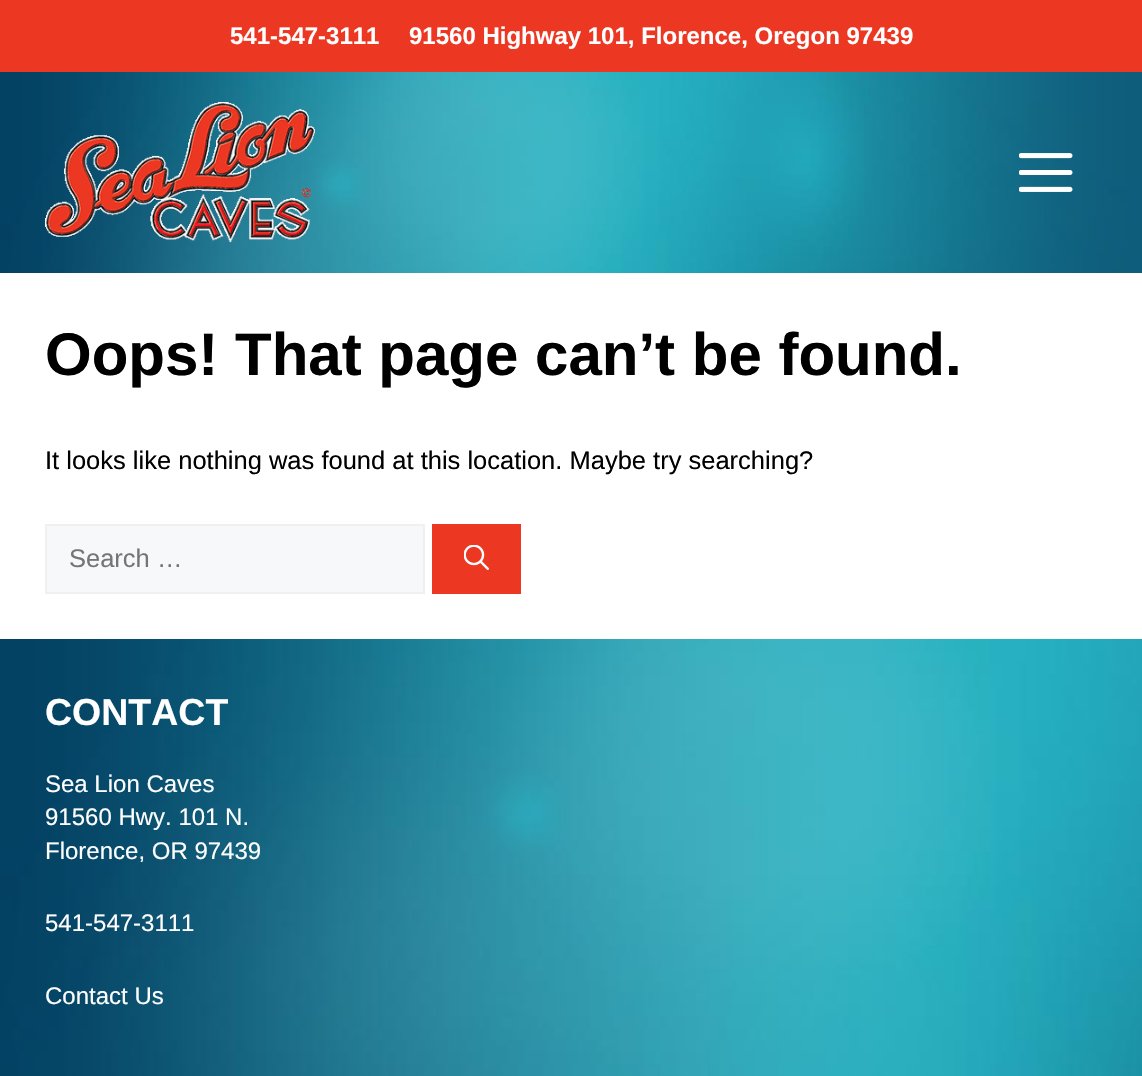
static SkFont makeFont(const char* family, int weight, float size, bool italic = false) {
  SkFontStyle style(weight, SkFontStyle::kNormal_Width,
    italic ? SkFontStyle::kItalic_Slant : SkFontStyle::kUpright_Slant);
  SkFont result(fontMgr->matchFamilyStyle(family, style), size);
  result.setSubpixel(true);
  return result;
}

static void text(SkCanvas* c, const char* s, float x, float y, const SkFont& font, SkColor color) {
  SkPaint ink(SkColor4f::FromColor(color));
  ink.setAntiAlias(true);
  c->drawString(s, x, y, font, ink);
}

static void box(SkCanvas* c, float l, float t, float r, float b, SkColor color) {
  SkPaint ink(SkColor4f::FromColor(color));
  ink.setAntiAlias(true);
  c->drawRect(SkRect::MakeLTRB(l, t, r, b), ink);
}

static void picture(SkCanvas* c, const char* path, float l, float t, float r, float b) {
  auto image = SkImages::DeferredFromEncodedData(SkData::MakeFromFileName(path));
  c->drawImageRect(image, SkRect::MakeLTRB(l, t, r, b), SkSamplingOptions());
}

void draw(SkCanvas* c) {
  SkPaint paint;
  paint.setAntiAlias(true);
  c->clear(0xffffffff);
  box(c, 0, 0, 1142, 72, 0xffec3723);
  SkFont face1 = makeFont("Liberation Sans", 700, 24);
  text(c, "541-547-3111", 230, 44, face1, 0xffffffff);
  text(c, "91560 Highway 101, Florence, Oregon 97439", 409, 44, face1, 0xffffffff);
  picture(c, "img_01.png", 0, 72, 1142, 273);
  picture(c, "img_02.png", 45, 102, 315, 243);
  picture(c, "img_03.png", 1019, 153, 1073, 192);
  SkFont face2 = makeFont("Liberation Sans", 700, 60);
  text(c, "Oops! That page can’t be found.", 45, 375, face2, 0xff000000);
  SkFont face3 = makeFont("Liberation Sans", 400, 25.5f);
  text(c, "It looks like nothing was found at this location. Maybe try searching?", 45, 469, face3, 0xff000000);
  paint.setColor(0xfff7f8f9);
  c->drawRect(SkRect::MakeLTRB(46, 525, 424, 593), paint);
  paint.setStyle(SkPaint::kStroke_Style);
  paint.setStrokeWidth(2);
  paint.setColor(0xfff0f0f0);
  c->drawRect(SkRect::MakeLTRB(46, 525, 424, 593), paint);
  text(c, "Search …", 69, 567, face3, 0xff757575);
  box(c, 432, 524, 521, 594, 0xffec3723);
  picture(c, "img_04.png", 464, 545, 489, 570);
  picture(c, "img_05.png", 0, 639, 1142, 1076);
  SkFont face4 = makeFont("Liberation Sans", 700, 37.5f);
  text(c, "CONTACT", 45, 725, face4, 0xffffffff);
  SkFont face5 = makeFont("Liberation Sans", 400, 24);
  text(c, "Sea Lion Caves", 45, 792, face5, 0xffffffff);
  text(c, "91560 Hwy. 101 N.", 45, 825, face5, 0xffffffff);
  text(c, "Florence, OR 97439", 45, 859, face5, 0xffffffff);
  text(c, "541-547-3111", 45, 931, face5, 0xffffffff);
  text(c, "Contact Us", 45, 1004, face5, 0xffffffff);
}
